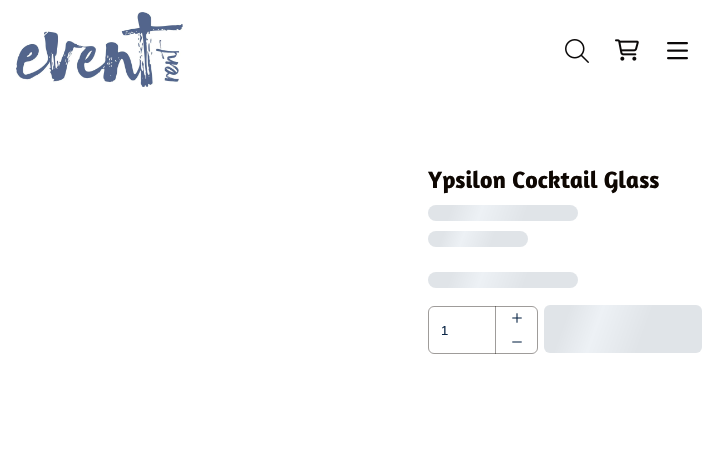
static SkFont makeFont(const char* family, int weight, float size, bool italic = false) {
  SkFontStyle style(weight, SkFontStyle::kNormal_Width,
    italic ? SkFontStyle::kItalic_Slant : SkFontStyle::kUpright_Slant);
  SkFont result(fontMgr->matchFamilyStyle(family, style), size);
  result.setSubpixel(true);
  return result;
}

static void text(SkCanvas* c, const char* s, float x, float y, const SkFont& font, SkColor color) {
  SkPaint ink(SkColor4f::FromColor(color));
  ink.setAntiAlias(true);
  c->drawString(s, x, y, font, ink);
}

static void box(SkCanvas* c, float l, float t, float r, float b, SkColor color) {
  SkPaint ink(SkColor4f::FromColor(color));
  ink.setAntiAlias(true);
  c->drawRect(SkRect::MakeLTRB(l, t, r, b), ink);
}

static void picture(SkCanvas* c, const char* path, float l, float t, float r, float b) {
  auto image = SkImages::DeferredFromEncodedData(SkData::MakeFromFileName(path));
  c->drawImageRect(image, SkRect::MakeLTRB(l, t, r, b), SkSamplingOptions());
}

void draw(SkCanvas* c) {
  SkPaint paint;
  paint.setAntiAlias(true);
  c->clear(0xffffffff);
  picture(c, "img_01.png", 16, 12, 183, 87);
  picture(c, "img_02.png", 565, 39, 589, 63);
  picture(c, "img_03.png", 615, 39, 639, 61);
  picture(c, "img_04.png", 667, 42, 688, 60);
  SkFont face1 = makeFont("Amaranth", 700, 24);
  text(c, "Ypsilon Cocktail Glass", 428, 188, face1, 0xff0e0702);
  {
    const SkColor colors[] = {0xffe0e4e8, 0xffedf1f5, 0xffe0e4e8};
    const float stops[] = {0.08f, 0.18f, 0.33f};
    const SkPoint ends[] = {{443, 164}, {713, 262}};
    paint.setShader(SkGradientShader::MakeLinear(ends, colors, stops, 3, SkTileMode::kClamp));
    paint.setAlpha(255);
  }
  c->drawRoundRect(SkRect::MakeLTRB(428, 205, 578, 221), 8, 8, paint);
  {
    const SkColor colors[] = {0xffe0e4e8, 0xffedf1f5, 0xffe0e4e8};
    const float stops[] = {0.08f, 0.18f, 0.33f};
    const SkPoint ends[] = {{437, 206}, {619, 272}};
    paint.setShader(SkGradientShader::MakeLinear(ends, colors, stops, 3, SkTileMode::kClamp));
    paint.setAlpha(255);
  }
  c->drawRoundRect(SkRect::MakeLTRB(428, 231, 528, 247), 8, 8, paint);
  {
    const SkColor colors[] = {0xffe0e4e8, 0xffedf1f5, 0xffe0e4e8};
    const float stops[] = {0.08f, 0.18f, 0.33f};
    const SkPoint ends[] = {{443, 231}, {713, 329}};
    paint.setShader(SkGradientShader::MakeLinear(ends, colors, stops, 3, SkTileMode::kClamp));
    paint.setAlpha(255);
  }
  c->drawRoundRect(SkRect::MakeLTRB(428, 272, 578, 288), 8, 8, paint);
  paint.setStyle(SkPaint::kStroke_Style);
  paint.setStrokeWidth(1);
  paint.setShader(nullptr);
  paint.setColor(0xff9f9c9a);
  c->drawRoundRect(SkRect::MakeLTRB(428.5f, 306.5f, 537.5f, 353.5f), 5.5f, 5.5f, paint);
  SkFont face2 = makeFont("Liberation Sans", 400, 13);
  text(c, "1", 441, 335, face2, 0xff0c2747);
  box(c, 495, 306, 496, 354, 0x660e0702);
  picture(c, "img_05.png", 512, 313, 522, 323);
  picture(c, "img_06.png", 512, 341, 522, 343);
  paint.setStyle(SkPaint::kFill_Style);
  {
    const SkColor colors[] = {0xffe0e4e8, 0xffedf1f5, 0xffe0e4e8};
    const float stops[] = {0.08f, 0.18f, 0.33f};
    const SkPoint ends[] = {{555, 275}, {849, 383}};
    paint.setShader(SkGradientShader::MakeLinear(ends, colors, stops, 3, SkTileMode::kClamp));
    paint.setAlpha(255);
  }
  c->drawRoundRect(SkRect::MakeLTRB(544, 305, 702, 353), 6, 6, paint);
}
